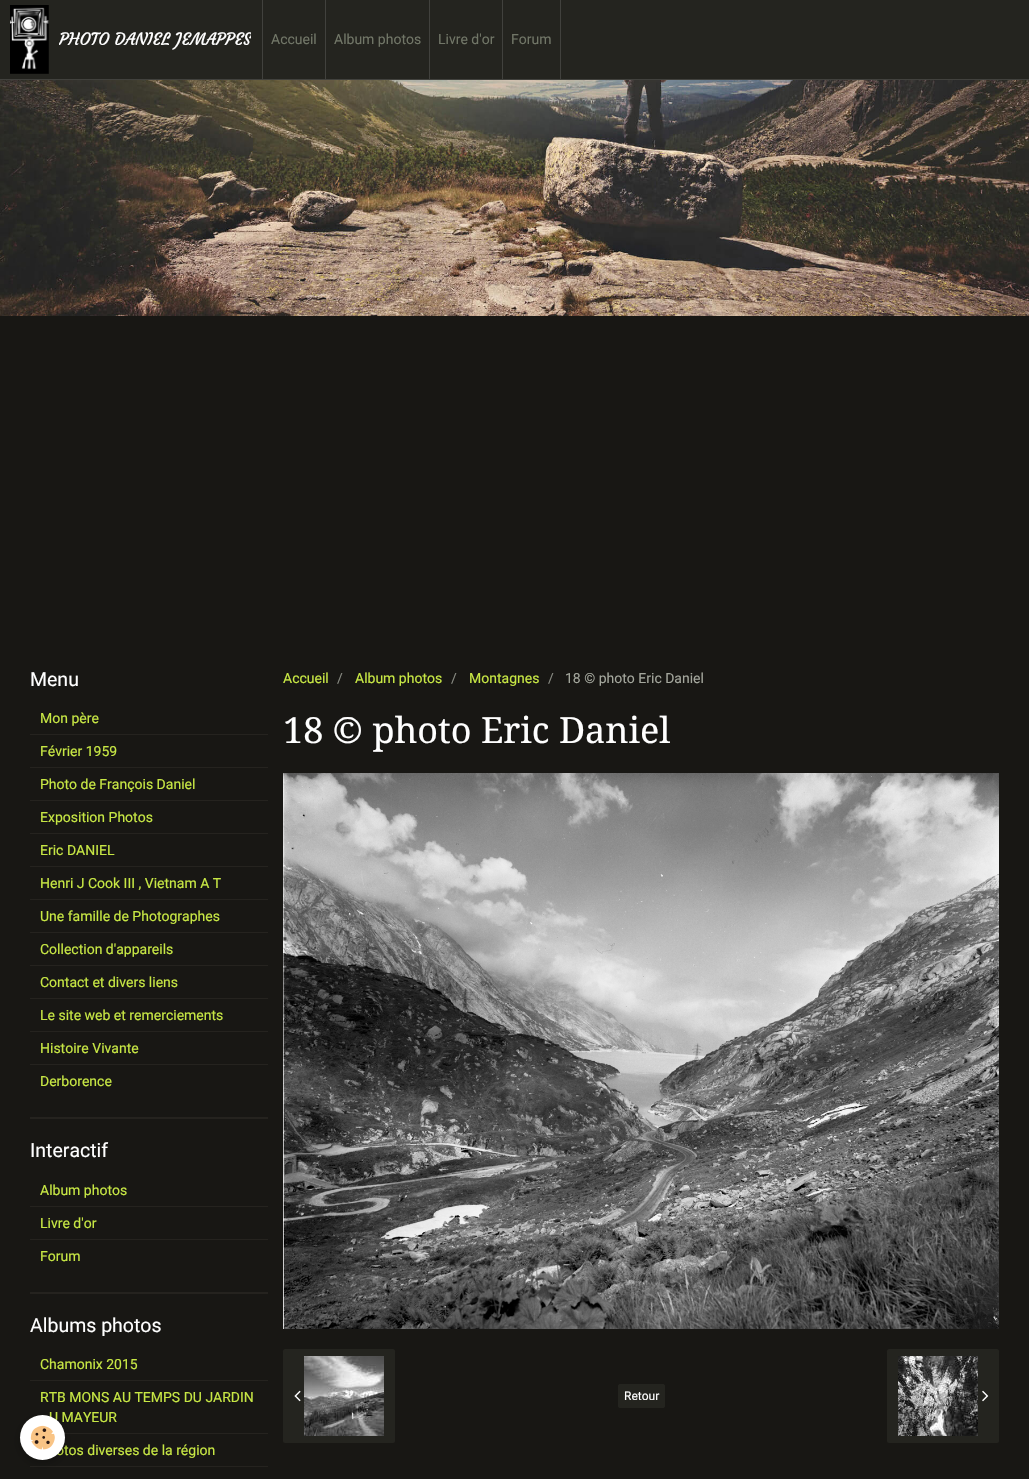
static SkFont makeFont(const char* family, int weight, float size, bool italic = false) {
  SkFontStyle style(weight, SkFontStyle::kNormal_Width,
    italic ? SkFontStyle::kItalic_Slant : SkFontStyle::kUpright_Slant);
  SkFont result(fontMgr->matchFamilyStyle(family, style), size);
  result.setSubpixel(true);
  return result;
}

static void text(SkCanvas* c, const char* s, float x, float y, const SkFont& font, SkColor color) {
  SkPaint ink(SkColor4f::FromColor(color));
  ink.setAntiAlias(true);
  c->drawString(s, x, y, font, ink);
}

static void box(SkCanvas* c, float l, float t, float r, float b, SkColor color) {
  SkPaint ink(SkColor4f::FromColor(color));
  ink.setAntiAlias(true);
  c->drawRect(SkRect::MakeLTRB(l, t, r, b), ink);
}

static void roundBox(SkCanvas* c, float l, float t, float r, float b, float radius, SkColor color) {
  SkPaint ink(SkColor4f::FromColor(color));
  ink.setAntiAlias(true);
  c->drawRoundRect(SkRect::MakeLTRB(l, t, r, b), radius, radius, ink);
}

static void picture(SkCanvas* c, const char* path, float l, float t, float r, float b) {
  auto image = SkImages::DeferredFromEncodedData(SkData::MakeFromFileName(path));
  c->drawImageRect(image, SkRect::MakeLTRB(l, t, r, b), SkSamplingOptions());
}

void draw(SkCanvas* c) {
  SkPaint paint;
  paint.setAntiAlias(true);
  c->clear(0xff181714);
  box(c, 0, 0, 1029, 79, 0xff24241f);
  box(c, 0, 79, 1029, 80, 0xff41413d);
  picture(c, "img_01.png", 10, 5, 49, 74);
  c->save();
  c->clipRect(SkRect::MakeLTRB(59, 28, 251, 51));
  SkFont face1 = makeFont("Courgette", 400, 16.75f);
  text(c, "PHOTO DANIEL JEMAPPES", 59, 45, face1, 0xffffffff);
  c->restore();
  box(c, 325, 0, 326, 79, 0xff41413d);
  box(c, 262, 0, 263, 79, 0xff41413d);
  SkFont face2 = makeFont("Roboto", 400, 14);
  text(c, "Accueil", 271, 44, face2, 0xff717667);
  box(c, 429, 0, 430, 79, 0xff41413d);
  text(c, "Album photos", 334, 44, face2, 0xff717667);
  box(c, 502, 0, 503, 79, 0xff41413d);
  text(c, "Livre d'or", 438, 44, face2, 0xff717667);
  box(c, 560, 0, 561, 79, 0xff41413d);
  text(c, "Forum", 511, 44, face2, 0xff717667);
  picture(c, "img_02.png", 0, 80, 1029, 316);
  box(c, 30, 1117, 268, 1119, 0xff25231f);
  SkFont face3 = makeFont("Roboto", 400, 19.5f);
  text(c, "Menu", 30, 686, face3, 0xffffffff);
  box(c, 30, 734, 268, 735, 0xff25231f);
  text(c, "Mon père", 40, 723, face2, 0xffc7e744);
  box(c, 30, 767, 268, 768, 0xff25231f);
  text(c, "Février 1959", 40, 756, face2, 0xffc7e744);
  box(c, 30, 800, 268, 801, 0xff25231f);
  text(c, "Photo de François Daniel", 40, 789, face2, 0xffc7e744);
  box(c, 30, 833, 268, 834, 0xff25231f);
  text(c, "Exposition Photos", 40, 822, face2, 0xffc7e744);
  box(c, 30, 866, 268, 867, 0xff25231f);
  text(c, "Eric DANIEL", 40, 855, face2, 0xffc7e744);
  box(c, 30, 899, 268, 900, 0xff25231f);
  text(c, "Henri J Cook III , Vietnam A T", 40, 888, face2, 0xffc7e744);
  box(c, 30, 932, 268, 933, 0xff25231f);
  text(c, "Une famille de Photographes", 40, 921, face2, 0xffc7e744);
  box(c, 30, 965, 268, 966, 0xff25231f);
  text(c, "Collection d'appareils", 40, 954, face2, 0xffc7e744);
  box(c, 30, 998, 268, 999, 0xff25231f);
  text(c, "Contact et divers liens", 40, 987, face2, 0xffc7e744);
  box(c, 30, 1031, 268, 1032, 0xff25231f);
  text(c, "Le site web et remerciements", 40, 1020, face2, 0xffc7e744);
  box(c, 30, 1064, 268, 1065, 0xff25231f);
  text(c, "Histoire Vivante", 40, 1053, face2, 0xffc7e744);
  text(c, "Derborence", 40, 1086, face2, 0xffc7e744);
  box(c, 30, 1292, 268, 1294, 0xff25231f);
  text(c, "Interactif", 30, 1157, face3, 0xffffffff);
  box(c, 30, 1206, 268, 1207, 0xff25231f);
  text(c, "Album photos", 40, 1195, face2, 0xffc7e744);
  box(c, 30, 1239, 268, 1240, 0xff25231f);
  text(c, "Livre d'or", 40, 1228, face2, 0xffc7e744);
  text(c, "Forum", 40, 1261, face2, 0xffc7e744);
  text(c, "Albums photos", 30, 1332, face3, 0xffffffff);
  box(c, 30, 1380, 268, 1381, 0xff25231f);
  text(c, "Chamonix 2015", 40, 1369, face2, 0xffc7e744);
  box(c, 64, 1433, 268, 1434, 0xff25231f);
  text(c, "RTB MONS AU TEMPS DU JARDIN", 40, 1402, face2, 0xffc7e744);
  text(c, "U MAYEUR", 49, 1422, face2, 0xffc7e744);
  box(c, 30, 1466, 268, 1467, 0xff25231f);
  text(c, "otos diverses de la région", 56, 1455, face2, 0xffc7e744);
  text(c, "Accueil", 283, 683, face2, 0xffc7e744);
  text(c, "/", 337, 683, face2, 0xff888a82);
  text(c, "Album photos", 355, 683, face2, 0xffc7e744);
  text(c, "/", 451, 683, face2, 0xff888a82);
  text(c, "Montagnes", 469, 683, face2, 0xffc7e744);
  text(c, "/", 548, 683, face2, 0xff888a82);
  text(c, "18 © photo Eric Daniel", 565, 683, face2, 0xffa4a79d);
  SkFont face4 = makeFont("Droid Serif", 400, 36);
  text(c, "18 © photo Eric Daniel", 283, 743, face4, 0xffffffff);
  picture(c, "img_03.png", 283, 773, 999, 1329);
  roundBox(c, 283, 1349, 395, 1443, 2.5f, 0xff24241f);
  picture(c, "img_04.png", 294, 1390, 301, 1402);
  picture(c, "img_05.png", 304, 1356, 384, 1436);
  paint.setColor(0xff24241f);
  c->drawRoundRect(SkRect::MakeLTRB(618.5f, 1384.5f, 664.5f, 1407.5f), 1.5f, 1.5f, paint);
  paint.setStyle(SkPaint::kStroke_Style);
  paint.setStrokeWidth(1);
  c->drawRoundRect(SkRect::MakeLTRB(618.5f, 1384.5f, 664.5f, 1407.5f), 1.5f, 1.5f, paint);
  SkFont face5 = makeFont("Roboto", 400, 12);
  text(c, "Retour", 624, 1400, face5, 0xffffffff);
  roundBox(c, 887, 1349, 999, 1443, 2.5f, 0xff24241f);
  picture(c, "img_06.png", 898, 1356, 978, 1436);
  picture(c, "img_07.png", 982, 1390, 989, 1402);
  paint.setStyle(SkPaint::kFill_Style);
  paint.setColor(0x3d000000);
  paint.setMaskFilter(SkMaskFilter::MakeBlur(kNormal_SkBlurStyle, 5));
  c->drawRoundRect(SkRect::MakeLTRB(20, 1418, 65, 1463), 22.5f, 22.5f, paint);
  paint.setMaskFilter(nullptr);
  paint.setColor(0xffffffff);
  c->drawCircle(42.5f, 1437.5f, 22.5f, paint);
  picture(c, "img_08.png", 30, 1425, 55, 1450);
}
